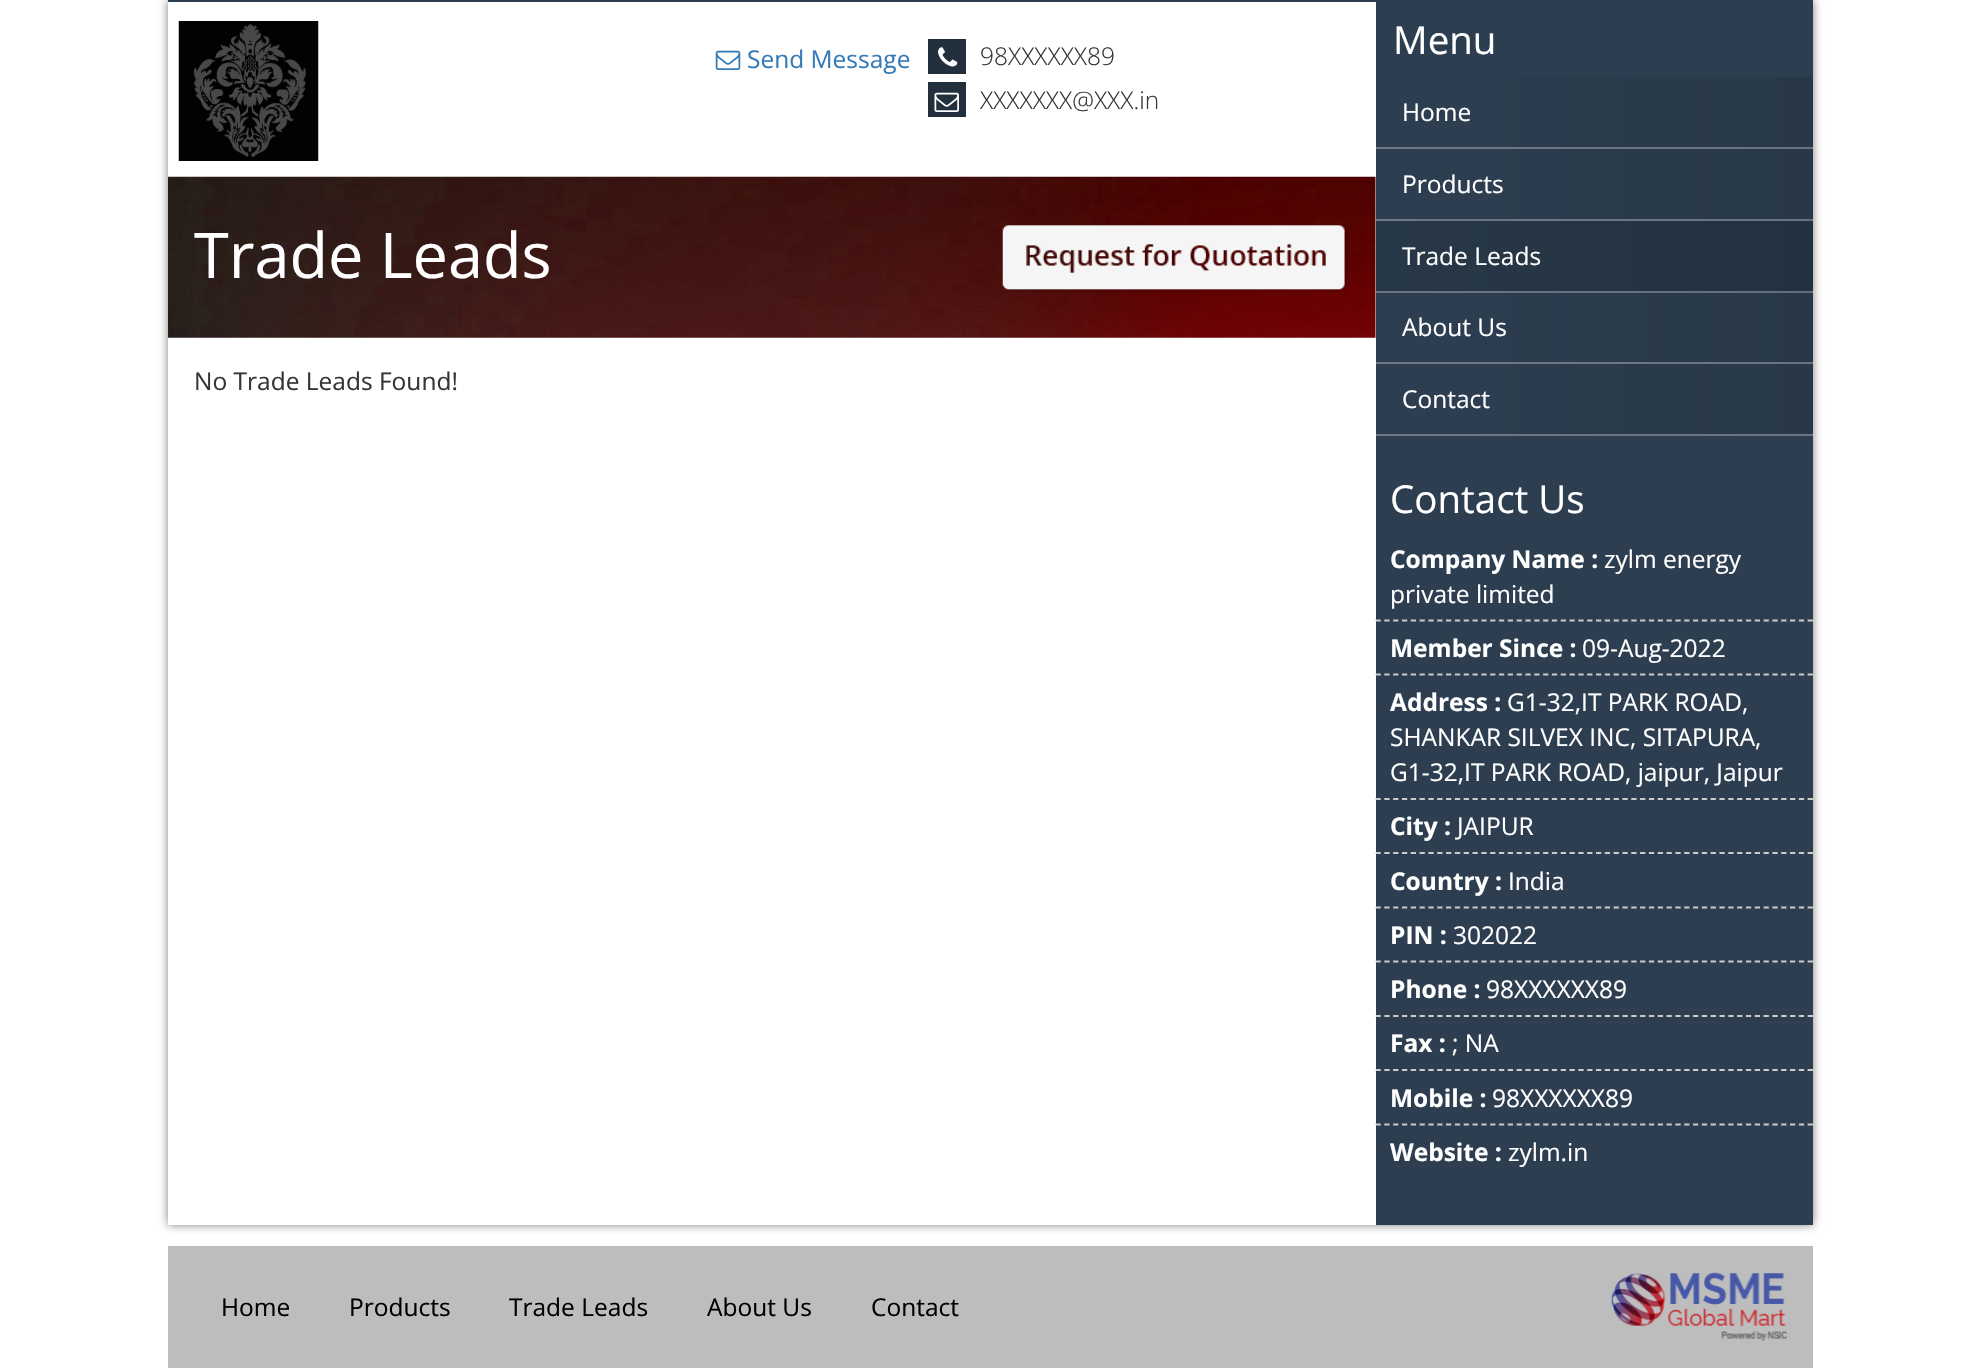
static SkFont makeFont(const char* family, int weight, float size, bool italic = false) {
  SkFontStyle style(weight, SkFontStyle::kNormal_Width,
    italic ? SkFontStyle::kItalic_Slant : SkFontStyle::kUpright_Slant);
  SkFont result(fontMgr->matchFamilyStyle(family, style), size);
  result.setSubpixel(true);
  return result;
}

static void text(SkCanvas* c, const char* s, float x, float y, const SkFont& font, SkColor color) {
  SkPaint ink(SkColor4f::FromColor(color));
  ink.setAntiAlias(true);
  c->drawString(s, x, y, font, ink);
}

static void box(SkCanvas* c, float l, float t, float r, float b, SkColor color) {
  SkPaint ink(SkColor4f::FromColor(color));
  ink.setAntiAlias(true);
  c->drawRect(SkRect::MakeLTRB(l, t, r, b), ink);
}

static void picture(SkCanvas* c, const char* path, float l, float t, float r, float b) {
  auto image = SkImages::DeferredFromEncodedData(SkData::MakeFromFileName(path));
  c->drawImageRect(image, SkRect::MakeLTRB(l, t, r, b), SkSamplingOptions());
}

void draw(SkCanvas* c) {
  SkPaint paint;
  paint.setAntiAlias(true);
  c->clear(0xffffffff);
  c->save();
  c->clipPath(SkPathBuilder(SkPathFillType::kEvenOdd).moveTo(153, 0).lineTo(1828, 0).lineTo(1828, 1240).lineTo(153, 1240).close().moveTo(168, 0).lineTo(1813, 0).lineTo(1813, 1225).lineTo(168, 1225).close().detach(), true);
  paint.setColor(0x80000000);
  paint.setMaskFilter(SkMaskFilter::MakeBlur(kNormal_SkBlurStyle, 4.5f));
  c->drawRect(SkRect::MakeLTRB(168, 0, 1813, 1225), paint);
  paint.setMaskFilter(nullptr);
  c->restore();
  box(c, 168, 0, 1376, 2, 0xff2c3e50);
  picture(c, "img_01.png", 178, 21, 319, 161);
  picture(c, "img_02.png", 715, 50, 741, 70);
  SkFont face1 = makeFont("Open Sans", 400, 24.5f);
  text(c, "Send Message", 747, 68, face1, 0xff337ab7);
  box(c, 928, 39, 966, 74, 0xff22303e);
  picture(c, "img_03.png", 938, 47, 958, 67);
  SkFont face2 = makeFont("Open Sans", 300, 24.5f);
  text(c, "98XXXXXX89", 980, 65, face2, 0xff353535);
  box(c, 928, 82, 966, 117, 0xff22303e);
  picture(c, "img_04.png", 934, 92, 959, 112);
  text(c, "XXXXXXX@XXX.in", 980, 109, face2, 0xff353535);
  box(c, 1376, 0, 1813, 1225, 0xff2c3e50);
  box(c, 1376, 292, 1813, 293, 0xff6b7885);
  SkFont face3 = makeFont("Open Sans", 400, 38.5f);
  text(c, "Menu", 1393, 54, face3, 0xffffffff);
  {
    const SkColor colors[] = {0xff2c3e50, 0xff233240};
    const float stops[] = {0, 1};
    const SkPoint ends[] = {{1376, 112}, {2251, 112}};
    paint.setShader(SkGradientShader::MakeLinear(ends, colors, stops, 2, SkTileMode::kClamp));
    paint.setAlpha(255);
  }
  c->drawRect(SkRect::MakeLTRB(1513, 77, 1813, 147), paint);
  {
    const SkColor colors[] = {0xff6b7885, 0xff657079};
    const float stops[] = {0, 1};
    const SkPoint ends[] = {{1376, 112}, {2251, 112}};
    paint.setShader(SkGradientShader::MakeLinear(ends, colors, stops, 2, SkTileMode::kClamp));
    paint.setAlpha(255);
  }
  c->drawRect(SkRect::MakeLTRB(1376, 147, 1813, 149), paint);
  text(c, "Home", 1402, 121, face1, 0xffffffff);
  {
    const SkColor colors[] = {0xff2c3e50, 0xff233240};
    const float stops[] = {0, 1};
    const SkPoint ends[] = {{1376, 184}, {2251, 184}};
    paint.setShader(SkGradientShader::MakeLinear(ends, colors, stops, 2, SkTileMode::kClamp));
    paint.setAlpha(255);
  }
  c->drawRect(SkRect::MakeLTRB(1513, 149, 1813, 219), paint);
  {
    const SkColor colors[] = {0xff6b7885, 0xff657079};
    const float stops[] = {0, 1};
    const SkPoint ends[] = {{1376, 184}, {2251, 184}};
    paint.setShader(SkGradientShader::MakeLinear(ends, colors, stops, 2, SkTileMode::kClamp));
    paint.setAlpha(255);
  }
  c->drawRect(SkRect::MakeLTRB(1376, 219, 1813, 221), paint);
  text(c, "Products", 1402, 193, face1, 0xffffffff);
  {
    const SkColor colors[] = {0xff2c3e50, 0xff233240};
    const float stops[] = {0, 1};
    const SkPoint ends[] = {{938, 256}, {1813, 255}};
    paint.setShader(SkGradientShader::MakeLinear(ends, colors, stops, 2, SkTileMode::kClamp));
    paint.setAlpha(255);
  }
  c->drawRect(SkRect::MakeLTRB(1376, 221, 1813, 291), paint);
  {
    const SkColor colors[] = {0xff6b7885, 0xff657079};
    const float stops[] = {0, 1};
    const SkPoint ends[] = {{938, 256}, {1813, 255}};
    paint.setShader(SkGradientShader::MakeLinear(ends, colors, stops, 2, SkTileMode::kClamp));
    paint.setAlpha(255);
  }
  c->drawRect(SkRect::MakeLTRB(1376, 291, 1813, 292), paint);
  text(c, "Trade Leads", 1402, 265, face1, 0xffffffff);
  {
    const SkColor colors[] = {0x00000000, 0x33000000};
    const float stops[] = {0, 1};
    const SkPoint ends[] = {{1376, 327}, {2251, 327}};
    paint.setShader(SkGradientShader::MakeLinear(ends, colors, stops, 2, SkTileMode::kClamp));
    paint.setAlpha(255);
  }
  c->drawRect(SkRect::MakeLTRB(1470, 292, 1813, 364), paint);
  box(c, 1376, 362, 1813, 364, 0x4dffffff);
  text(c, "About Us", 1402, 336, face1, 0xffffffff);
  {
    const SkColor colors[] = {0xff2c3e50, 0xff233240};
    const float stops[] = {0, 1};
    const SkPoint ends[] = {{1376, 399}, {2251, 399}};
    paint.setShader(SkGradientShader::MakeLinear(ends, colors, stops, 2, SkTileMode::kClamp));
    paint.setAlpha(255);
  }
  c->drawRect(SkRect::MakeLTRB(1513, 364, 1813, 434), paint);
  {
    const SkColor colors[] = {0xff6b7885, 0xff657079};
    const float stops[] = {0, 1};
    const SkPoint ends[] = {{1376, 399}, {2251, 399}};
    paint.setShader(SkGradientShader::MakeLinear(ends, colors, stops, 2, SkTileMode::kClamp));
    paint.setAlpha(255);
  }
  c->drawRect(SkRect::MakeLTRB(1376, 434, 1813, 436), paint);
  text(c, "Contact", 1402, 408, face1, 0xffffffff);
  text(c, "Contact Us", 1390, 513, face3, 0xffffffff);
  paint.setStyle(SkPaint::kStroke_Style);
  paint.setStrokeWidth(1.8f);
  paint.setShader(nullptr);
  paint.setColor(0xffcccccc);
  paint.setPathEffect(SkDashPathEffect::Make({{5.25f, 3.57f}}, 0));
  c->drawPath(SkPathBuilder().moveTo(1375.5f, 620.5f).lineTo(1813, 620.5f).detach(), paint);
  paint.setPathEffect(nullptr);
  SkFont face4 = makeFont("Open Sans", 700, 24.5f);
  text(c, "Company Name :", 1390, 568, face4, 0xffffffff);
  text(c, "zylm energy", 1604, 568, face1, 0xffffffff);
  text(c, "private limited", 1390, 603, face1, 0xffffffff);
  paint.setPathEffect(SkDashPathEffect::Make({{5.25f, 3.57f}}, 0));
  c->drawPath(SkPathBuilder().moveTo(1375.5f, 674.5f).lineTo(1813, 674.5f).detach(), paint);
  paint.setPathEffect(nullptr);
  text(c, "Member Since :", 1390, 657, face4, 0xffffffff);
  text(c, "09-Aug-2022", 1582, 657, face1, 0xffffffff);
  paint.setPathEffect(SkDashPathEffect::Make({{5.25f, 3.57f}}, 0));
  c->drawPath(SkPathBuilder().moveTo(1375.5f, 799).lineTo(1813, 799).detach(), paint);
  paint.setPathEffect(nullptr);
  text(c, "Address :", 1390, 711, face4, 0xffffffff);
  text(c, "G1-32,IT PARK ROAD,", 1507, 711, face1, 0xffffffff);
  text(c, "SHANKAR SILVEX INC, SITAPURA,", 1390, 746, face1, 0xffffffff);
  text(c, "G1-32,IT PARK ROAD, jaipur, Jaipur", 1390, 781, face1, 0xffffffff);
  paint.setPathEffect(SkDashPathEffect::Make({{5.25f, 3.57f}}, 0));
  c->drawPath(SkPathBuilder().moveTo(1375.5f, 853).lineTo(1813, 853).detach(), paint);
  paint.setPathEffect(nullptr);
  text(c, "City :", 1390, 835, face4, 0xffffffff);
  text(c, "JAIPUR", 1457, 835, face1, 0xffffffff);
  paint.setPathEffect(SkDashPathEffect::Make({{5.25f, 3.57f}}, 0));
  c->drawPath(SkPathBuilder().moveTo(1375.5f, 907.5f).lineTo(1813, 907.5f).detach(), paint);
  paint.setPathEffect(nullptr);
  text(c, "Country :", 1390, 890, face4, 0xffffffff);
  text(c, "India", 1508, 890, face1, 0xffffffff);
  paint.setPathEffect(SkDashPathEffect::Make({{5.25f, 3.57f}}, 0));
  c->drawPath(SkPathBuilder().moveTo(1375.5f, 961.5f).lineTo(1813, 961.5f).detach(), paint);
  paint.setPathEffect(nullptr);
  text(c, "PIN :", 1390, 944, face4, 0xffffffff);
  text(c, "302022", 1453, 944, face1, 0xffffffff);
  paint.setPathEffect(SkDashPathEffect::Make({{5.25f, 3.57f}}, 0));
  c->drawPath(SkPathBuilder().moveTo(1375.5f, 1016).lineTo(1813, 1016).detach(), paint);
  paint.setPathEffect(nullptr);
  text(c, "Phone :", 1390, 998, face4, 0xffffffff);
  text(c, "98XXXXXX89", 1486, 998, face1, 0xffffffff);
  paint.setPathEffect(SkDashPathEffect::Make({{5.25f, 3.57f}}, 0));
  c->drawPath(SkPathBuilder().moveTo(1375.5f, 1070).lineTo(1813, 1070).detach(), paint);
  paint.setPathEffect(nullptr);
  text(c, "Fax :", 1390, 1052, face4, 0xffffffff);
  text(c, "; NA", 1452, 1052, face1, 0xffffffff);
  paint.setPathEffect(SkDashPathEffect::Make({{5.25f, 3.57f}}, 0));
  c->drawPath(SkPathBuilder().moveTo(1375.5f, 1124.5f).lineTo(1813, 1124.5f).detach(), paint);
  paint.setPathEffect(nullptr);
  text(c, "Mobile :", 1390, 1107, face4, 0xffffffff);
  text(c, "98XXXXXX89", 1492, 1107, face1, 0xffffffff);
  text(c, "Website :", 1390, 1161, face4, 0xffffffff);
  text(c, "zylm.in", 1508, 1161, face1, 0xffffffff);
  picture(c, "img_05.png", 168, 176, 1376, 338);
  SkFont face5 = makeFont("Open Sans", 400, 63);
  text(c, "Trade Leads", 194, 278, face5, 0xffffffff);
  picture(c, "img_06.png", 1002, 224, 1349, 293);
  text(c, "No Trade Leads Found!", 194, 390, face1, 0xff353535);
  box(c, 168, 1246, 1813, 1368, 0xffbdbdbd);
  text(c, "Home", 221, 1316, face1, 0xff000000);
  text(c, "Products", 349, 1316, face1, 0xff000000);
  text(c, "Trade Leads", 509, 1316, face1, 0xff000000);
  text(c, "About Us", 707, 1316, face1, 0xff000000);
  text(c, "Contact", 871, 1316, face1, 0xff000000);
  picture(c, "img_07.png", 1611, 1272, 1787, 1341);
}
